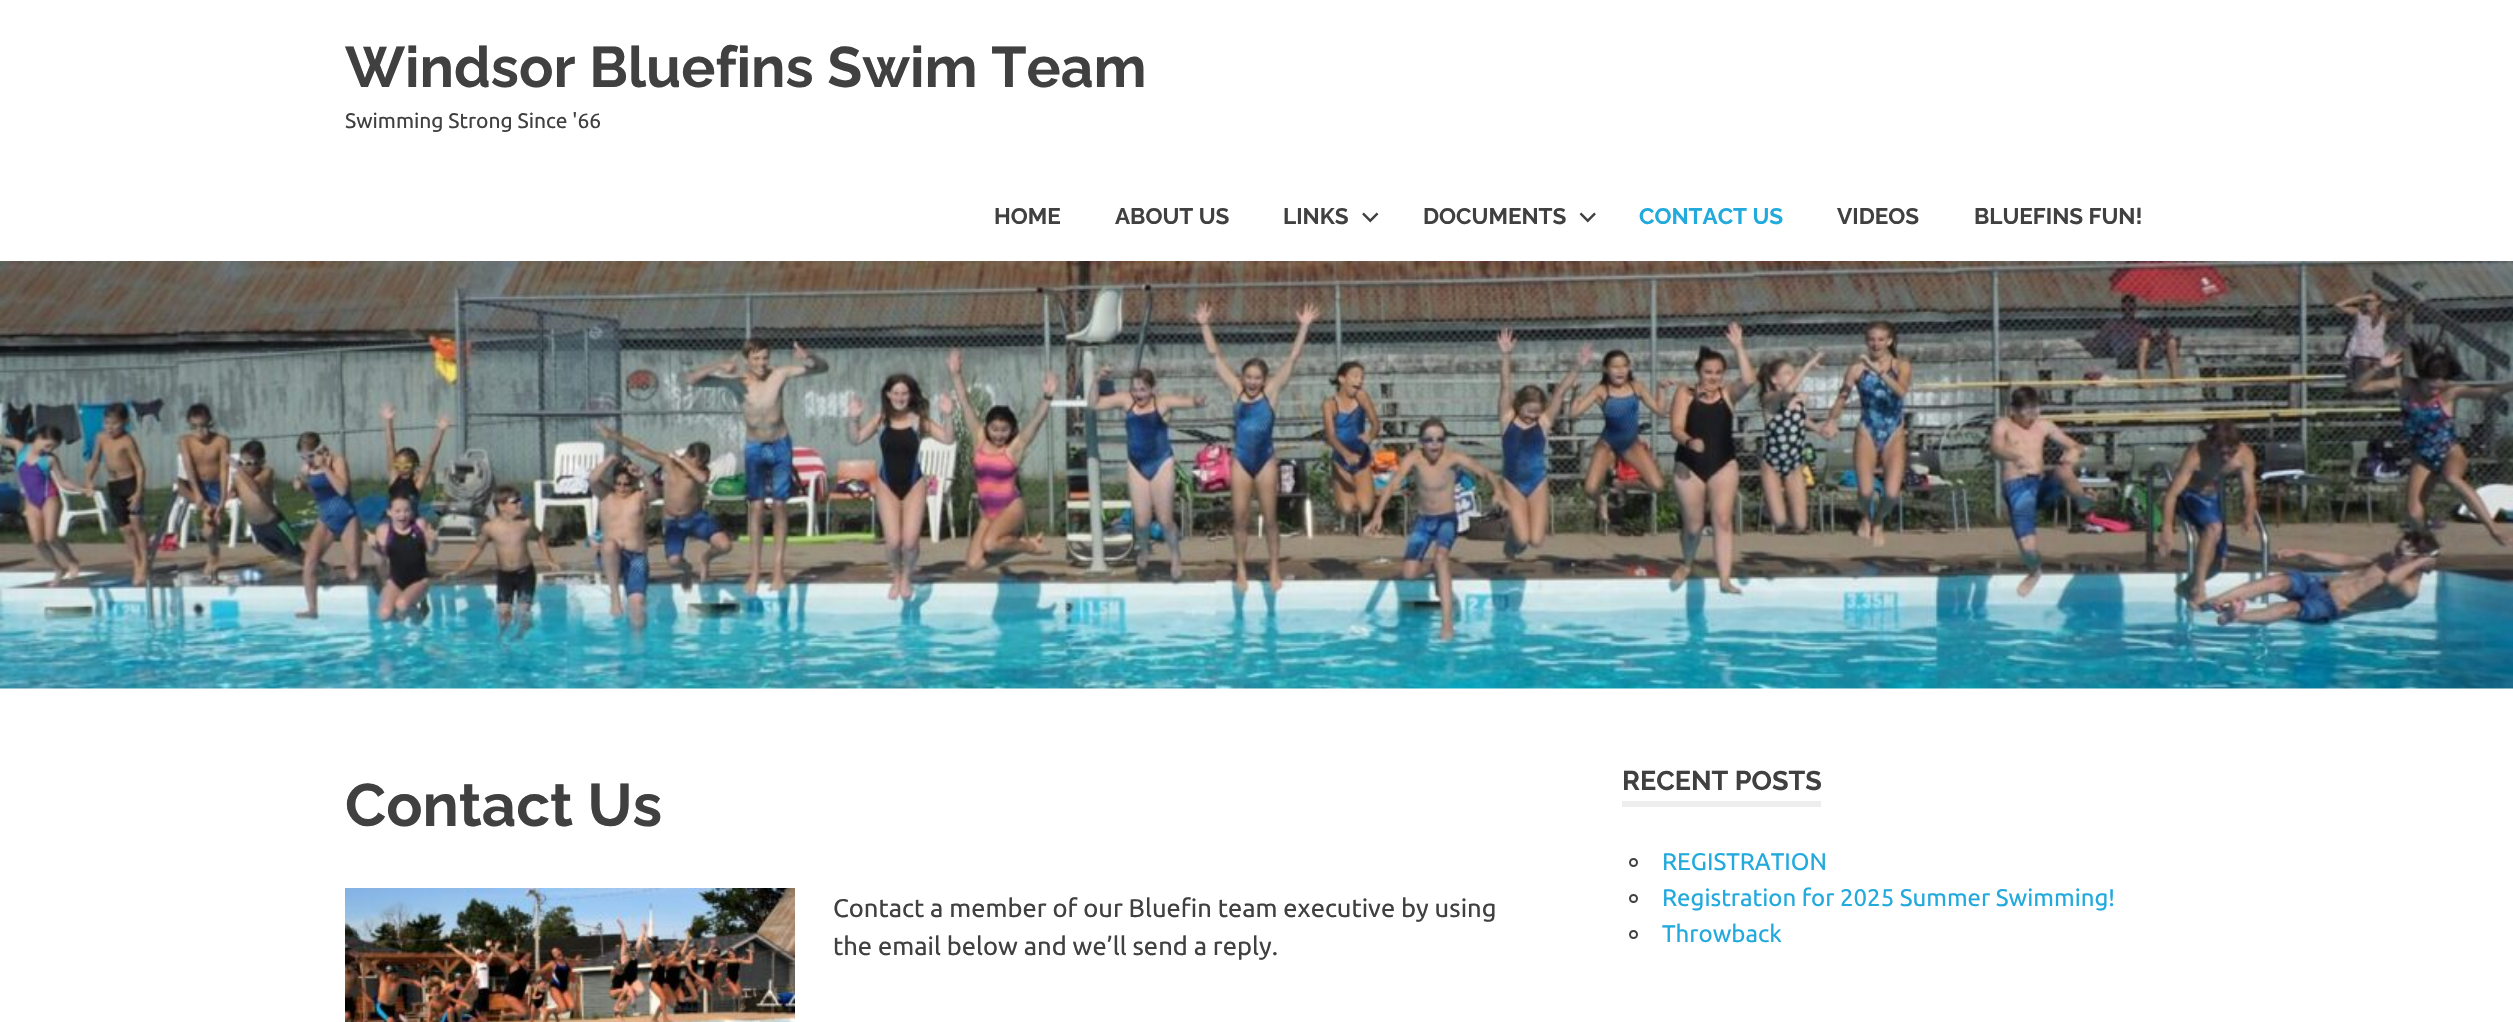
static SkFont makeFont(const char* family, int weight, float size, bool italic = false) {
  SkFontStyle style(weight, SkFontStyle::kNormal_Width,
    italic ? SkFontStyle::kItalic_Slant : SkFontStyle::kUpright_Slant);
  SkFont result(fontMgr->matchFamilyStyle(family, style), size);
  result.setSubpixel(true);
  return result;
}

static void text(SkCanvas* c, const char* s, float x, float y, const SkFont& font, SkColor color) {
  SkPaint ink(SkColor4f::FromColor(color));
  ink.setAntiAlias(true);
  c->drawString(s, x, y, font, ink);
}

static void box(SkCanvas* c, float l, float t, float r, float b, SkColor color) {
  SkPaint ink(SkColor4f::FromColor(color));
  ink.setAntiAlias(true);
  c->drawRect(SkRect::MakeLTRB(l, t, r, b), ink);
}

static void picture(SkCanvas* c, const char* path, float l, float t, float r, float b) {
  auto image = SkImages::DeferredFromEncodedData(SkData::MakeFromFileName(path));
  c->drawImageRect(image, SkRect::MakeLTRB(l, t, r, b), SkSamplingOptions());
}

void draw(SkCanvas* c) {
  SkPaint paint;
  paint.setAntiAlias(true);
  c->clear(0xffffffff);
  SkFont face1 = makeFont("Raleway", 700, 57);
  text(c, "Windsor Bluefins Swim Team", 345, 87, face1, 0xff404040);
  SkFont face2 = makeFont("Ubuntu", 400, 21);
  text(c, "Swimming Strong Since '66", 345, 128, face2, 0xff404040);
  SkFont face3 = makeFont("Raleway", 700, 22.5f);
  text(c, "HOME", 994, 224, face3, 0xff404040);
  text(c, "ABOUT US", 1115, 224, face3, 0xff404040);
  text(c, "LINKS", 1283, 224, face3, 0xff404040);
  picture(c, "img_01.png", 1362, 212, 1379, 223);
  text(c, "DOCUMENTS", 1423, 224, face3, 0xff404040);
  picture(c, "img_02.png", 1579, 212, 1596, 223);
  text(c, "CONTACT US", 1639, 224, face3, 0xff22aadd);
  text(c, "VIDEOS", 1837, 224, face3, 0xff404040);
  text(c, "BLUEFINS FUN!", 1974, 224, face3, 0xff404040);
  picture(c, "img_03.png", 0, 261, 2513, 689);
  SkFont face4 = makeFont("Raleway", 700, 60);
  text(c, "Contact Us", 345, 826, face4, 0xff404040);
  picture(c, "img_04.png", 345, 888, 795, 1022);
  SkFont face5 = makeFont("Ubuntu", 400, 25.5f);
  text(c, "Contact a member of our Bluefin team executive by using", 833, 917, face5, 0xff404040);
  text(c, "the email below and we’ll send a reply.", 833, 955, face5, 0xff404040);
  box(c, 1622, 801, 1821, 807, 0xffeeeeee);
  SkFont face6 = makeFont("Raleway", 700, 27);
  text(c, "RECENT POSTS", 1622, 790, face6, 0xff404040);
  paint.setStyle(SkPaint::kStroke_Style);
  paint.setStrokeWidth(2);
  paint.setColor(0xff404040);
  c->drawCircle(1633.5f, 862.5f, 3.5f, paint);
  SkFont face7 = makeFont("Ubuntu", 400, 24);
  text(c, "REGISTRATION", 1662, 870, face7, 0xff22aadd);
  c->drawCircle(1633.5f, 898.5f, 3.5f, paint);
  text(c, "Registration for 2025 Summer Swimming!", 1662, 906, face7, 0xff22aadd);
  c->drawCircle(1633.5f, 934.5f, 3.5f, paint);
  text(c, "Throwback", 1662, 942, face7, 0xff22aadd);
}
